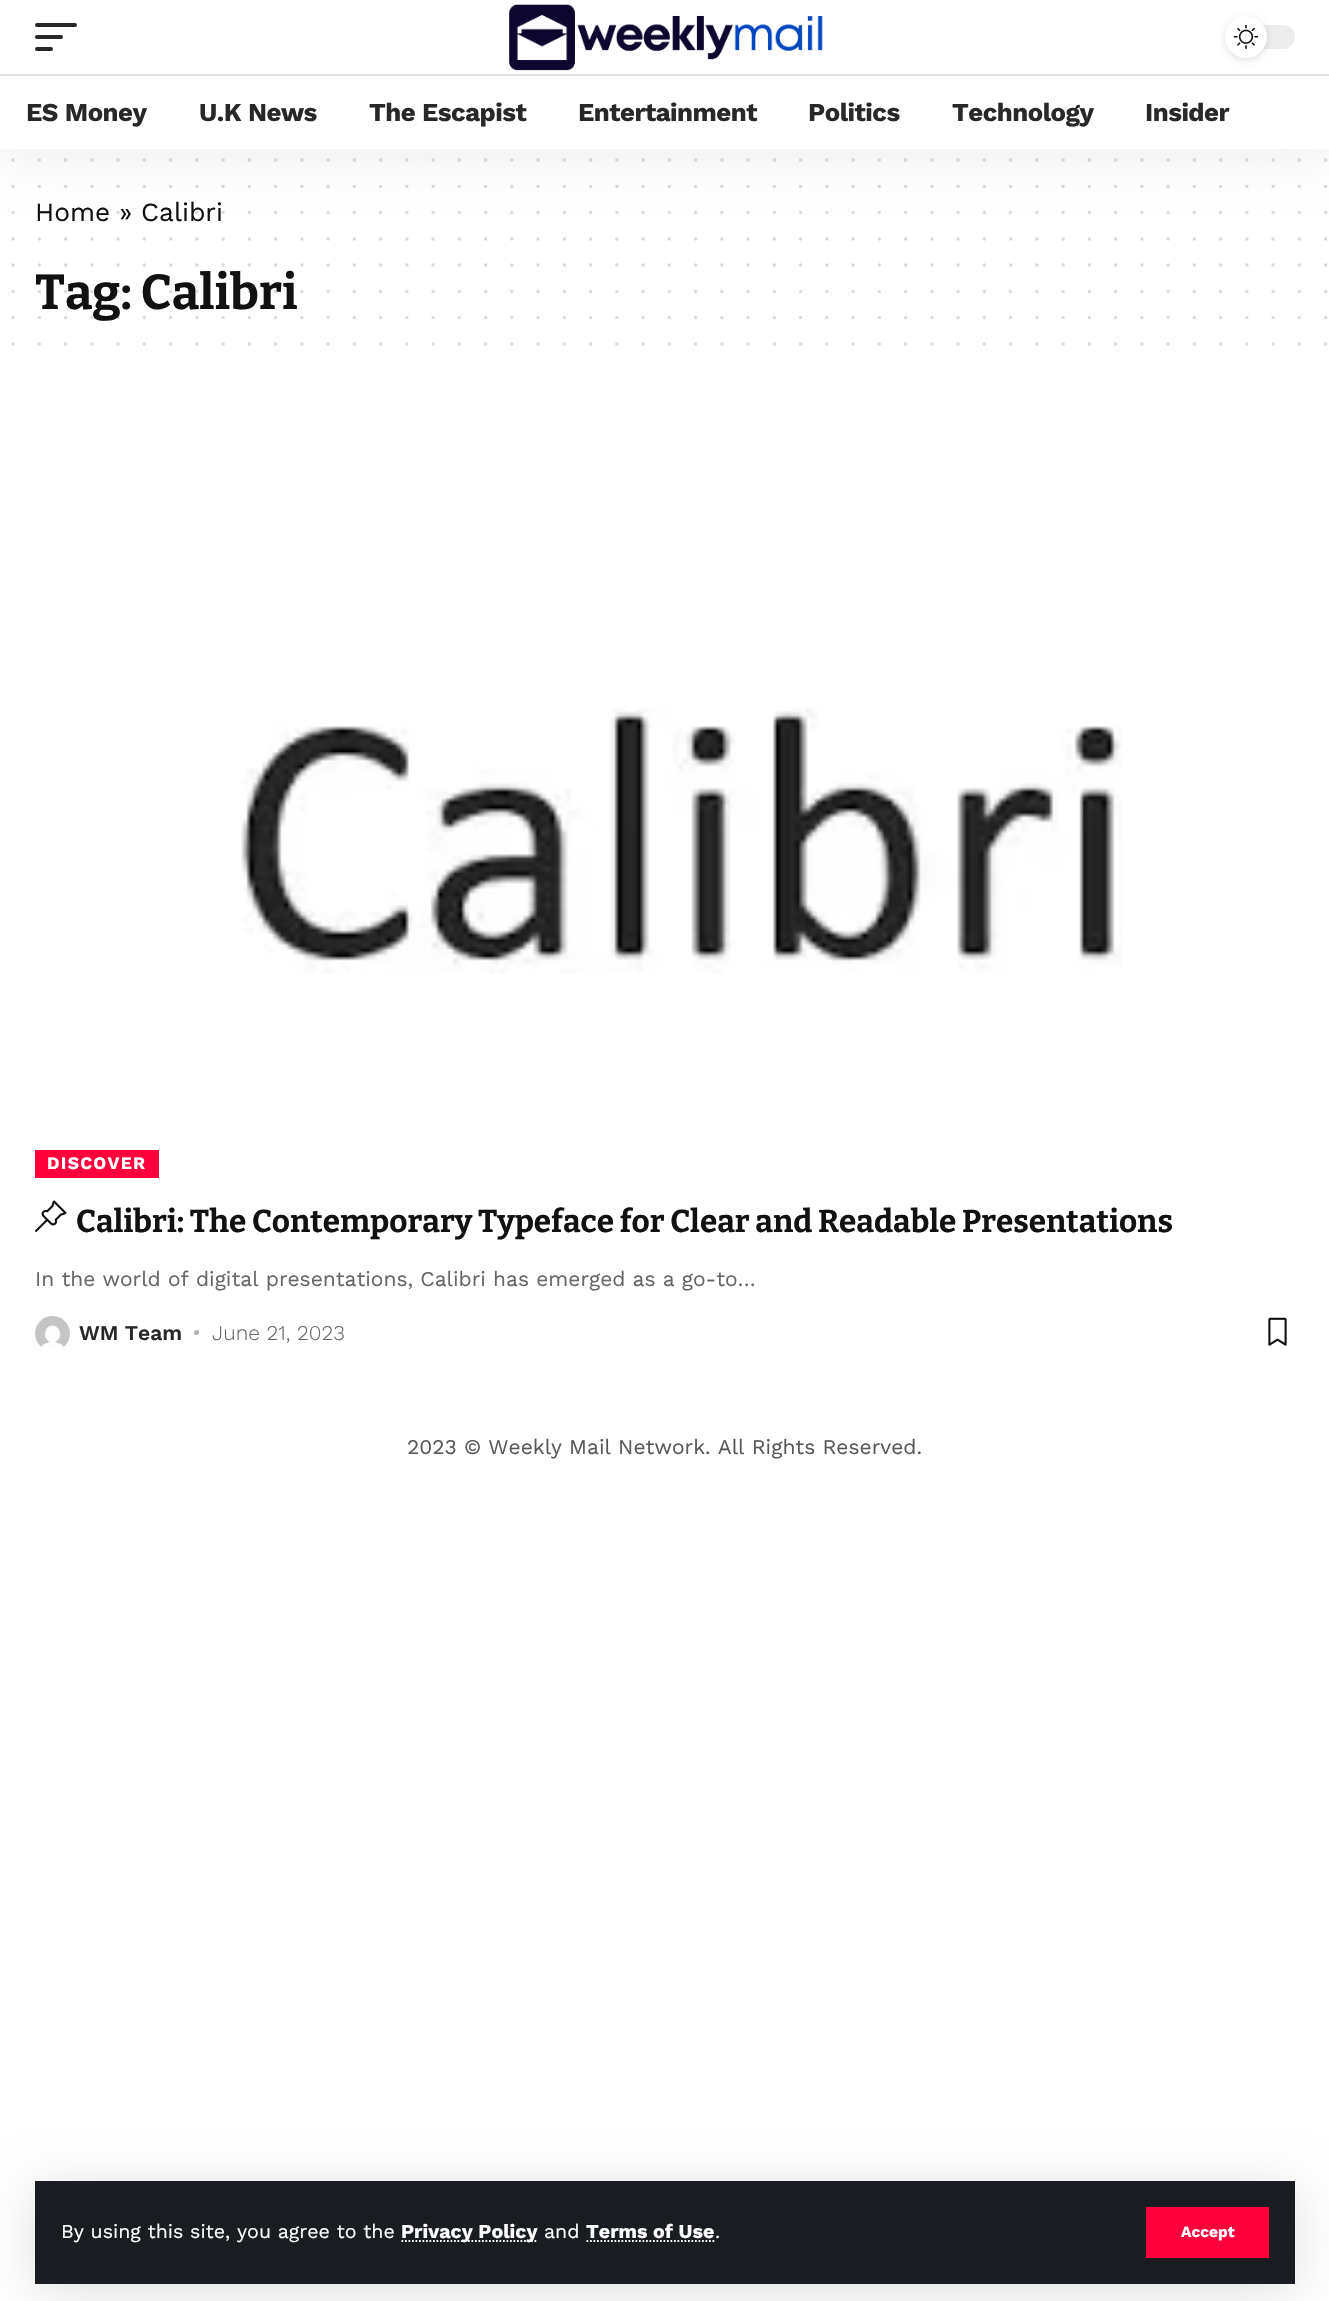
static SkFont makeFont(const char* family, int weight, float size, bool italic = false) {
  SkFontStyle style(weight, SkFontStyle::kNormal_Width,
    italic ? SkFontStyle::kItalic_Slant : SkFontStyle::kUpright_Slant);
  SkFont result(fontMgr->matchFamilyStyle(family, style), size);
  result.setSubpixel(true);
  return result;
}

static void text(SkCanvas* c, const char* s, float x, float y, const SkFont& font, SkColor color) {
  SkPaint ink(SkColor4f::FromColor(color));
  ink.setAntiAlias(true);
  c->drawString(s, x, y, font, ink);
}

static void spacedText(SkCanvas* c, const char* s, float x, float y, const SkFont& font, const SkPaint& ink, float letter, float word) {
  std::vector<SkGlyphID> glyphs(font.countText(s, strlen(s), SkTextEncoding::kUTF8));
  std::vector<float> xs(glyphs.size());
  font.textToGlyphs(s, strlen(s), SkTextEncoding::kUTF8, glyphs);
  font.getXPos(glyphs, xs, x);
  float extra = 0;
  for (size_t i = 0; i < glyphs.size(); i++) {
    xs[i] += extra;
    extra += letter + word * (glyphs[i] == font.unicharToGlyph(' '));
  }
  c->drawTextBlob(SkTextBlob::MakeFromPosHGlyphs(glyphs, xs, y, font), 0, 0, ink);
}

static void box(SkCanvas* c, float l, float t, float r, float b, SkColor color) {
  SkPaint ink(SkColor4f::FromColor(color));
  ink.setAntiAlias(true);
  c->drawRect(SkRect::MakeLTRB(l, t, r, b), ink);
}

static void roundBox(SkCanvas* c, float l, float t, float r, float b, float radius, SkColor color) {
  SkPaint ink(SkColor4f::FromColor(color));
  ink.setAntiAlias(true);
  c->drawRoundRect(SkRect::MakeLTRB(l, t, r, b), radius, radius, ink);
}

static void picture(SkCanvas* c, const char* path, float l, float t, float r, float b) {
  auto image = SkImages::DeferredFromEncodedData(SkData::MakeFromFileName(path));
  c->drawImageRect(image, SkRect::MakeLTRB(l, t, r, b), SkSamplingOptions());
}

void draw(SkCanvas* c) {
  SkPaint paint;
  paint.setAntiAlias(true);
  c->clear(0xffffffff);
  paint.setStyle(SkPaint::kStroke_Style);
  paint.setStrokeWidth(3.5f);
  paint.setStrokeCap(SkPaint::kRound_Cap);
  paint.setColor(0xffdbdbdb);
  paint.setPathEffect(SkDashPathEffect::Make({{0, 26.25f}}, 0));
  c->drawPath(SkPathBuilder().moveTo(13.1f, 160.1f).lineTo(1326, 160.1f).detach(), paint);
  paint.setPathEffect(nullptr);
  paint.setPathEffect(SkDashPathEffect::Make({{0, 26.25f}}, 0));
  c->drawPath(SkPathBuilder().moveTo(13.1f, 186.4f).lineTo(1326, 186.4f).detach(), paint);
  paint.setPathEffect(nullptr);
  SkFont face1 = makeFont("Work Sans", 400, 26.25f);
  text(c, "Home » Calibri", 35, 221, face1, 0xff111111);
  paint.setColor(0x26111111);
  paint.setPathEffect(SkDashPathEffect::Make({{0, 26.25f}}, 0));
  c->drawPath(SkPathBuilder().moveTo(13.1f, 212.6f).lineTo(1326, 212.6f).detach(), paint);
  paint.setPathEffect(nullptr);
  paint.setStyle(SkPaint::kFill_Style);
  paint.setColor(0x12000000);
  paint.setMaskFilter(SkMaskFilter::MakeBlur(kNormal_SkBlurStyle, 26));
  c->drawRect(SkRect::MakeLTRB(0, 7, 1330, 156), paint);
  paint.setMaskFilter(nullptr);
  box(c, 0, 0, 1329, 149, 0xffffffff);
  roundBox(c, 35, 23, 77, 27, 2, 0xff282828);
  roundBox(c, 35, 35, 63, 39, 2, 0xff282828);
  roundBox(c, 35, 47, 53, 51, 2, 0xff282828);
  picture(c, "img_01.png", 509, 4, 823, 71);
  roundBox(c, 1225, 25, 1295, 49, 12, 0xffededed);
  paint.setColor(0x1f000000);
  paint.setMaskFilter(SkMaskFilter::MakeBlur(kNormal_SkBlurStyle, 3.5f));
  c->drawRoundRect(SkRect::MakeLTRB(1225, 18, 1267, 60), 21, 21, paint);
  paint.setMaskFilter(nullptr);
  paint.setColor(0xffffffff);
  c->drawCircle(1246, 37, 21, paint);
  picture(c, "img_02.png", 1234, 25, 1258, 49);
  box(c, 0, 74, 1329, 76, 0xffe4e4e4);
  SkFont face2 = makeFont("Work Sans", 700, 25.75f);
  paint.setColor(0xff282828);
  spacedText(c, "ES Money", 26, 121, face2, paint, -0.5f, 0);
  spacedText(c, "U.K News", 199, 121, face2, paint, -0.5f, 0);
  spacedText(c, "The Escapist", 369, 121, face2, paint, -0.5f, 0);
  spacedText(c, "Entertainment", 578, 121, face2, paint, -0.5f, 0);
  spacedText(c, "Politics", 808, 121, face2, paint, -0.5f, 0);
  spacedText(c, "Technology", 952, 121, face2, paint, -0.5f, 0);
  spacedText(c, "Insider", 1145, 121, face2, paint, -0.5f, 0);
  paint.setColor(0x1f000000);
  paint.setMaskFilter(SkMaskFilter::MakeBlur(kNormal_SkBlurStyle, 26));
  c->drawRect(SkRect::MakeLTRB(35, 2188, 1295, 2291), paint);
  paint.setMaskFilter(nullptr);
  box(c, 35, 2181, 1295, 2284, 0xff191c20);
  SkFont face3 = makeFont("Work Sans", 400, 19.6f);
  text(c, "By using this site, you agree to the", 61, 2238, face3, 0xffffffff);
  paint.setStyle(SkPaint::kStroke_Style);
  paint.setStrokeWidth(1.8f);
  paint.setStrokeCap(SkPaint::kButt_Cap);
  paint.setColor(0xffffffff);
  paint.setPathEffect(SkDashPathEffect::Make({{1.75f, 1.75f}}, 0));
  c->drawPath(SkPathBuilder().moveTo(401.5f, 2241).lineTo(537.5f, 2241).detach(), paint);
  paint.setPathEffect(nullptr);
  SkFont face4 = makeFont("Work Sans", 700, 19.6f);
  text(c, "Privacy Policy", 401, 2238, face4, 0xffffffff);
  text(c, "and", 544, 2238, face3, 0xffffffff);
  text(c, "Terms of Use", 586, 2238, face4, 0xffffffff);
  paint.setPathEffect(SkDashPathEffect::Make({{1.75f, 1.75f}}, 0));
  c->drawPath(SkPathBuilder().moveTo(586.5f, 2241).lineTo(714.5f, 2241).detach(), paint);
  paint.setPathEffect(nullptr);
  text(c, ".", 715, 2238, face3, 0xffffffff);
  box(c, 1146, 2207, 1269, 2258, 0xffff003c);
  SkFont face5 = makeFont("Work Sans", 700, 15.5f);
  text(c, "Accept", 1181, 2237, face5, 0xffffffff);
  paint.setStrokeWidth(3.5f);
  paint.setStrokeCap(SkPaint::kRound_Cap);
  paint.setColor(0xffdbdbdb);
  paint.setPathEffect(SkDashPathEffect::Make({{0, 26.25f}}, 0));
  c->drawPath(SkPathBuilder().moveTo(13.1f, 238.9f).lineTo(1326, 238.9f).detach(), paint);
  paint.setPathEffect(nullptr);
  paint.setPathEffect(SkDashPathEffect::Make({{0, 26.25f}}, 0));
  c->drawPath(SkPathBuilder().moveTo(13.1f, 265.1f).lineTo(1326, 265.1f).detach(), paint);
  paint.setPathEffect(nullptr);
  SkFont face6 = makeFont("Bitter", 700, 49);
  text(c, "Tag: Calibri", 35, 309, face6, 0xff111111);
  paint.setColor(0x26111111);
  paint.setPathEffect(SkDashPathEffect::Make({{0, 26.25f}}, 0));
  c->drawPath(SkPathBuilder().moveTo(13.1f, 291.4f).lineTo(1326, 291.4f).detach(), paint);
  paint.setPathEffect(nullptr);
  paint.setPathEffect(SkDashPathEffect::Make({{0, 26.25f}}, 0));
  c->drawPath(SkPathBuilder().moveTo(13.1f, 317.6f).lineTo(1326, 317.6f).detach(), paint);
  paint.setPathEffect(nullptr);
  paint.setColor(0xffdbdbdb);
  paint.setPathEffect(SkDashPathEffect::Make({{0, 26.25f}}, 0));
  c->drawPath(SkPathBuilder().moveTo(13.1f, 343.9f).lineTo(1326, 343.9f).detach(), paint);
  paint.setPathEffect(nullptr);
  picture(c, "img_03.png", 241, 707, 1122, 974);
  box(c, 35, 1150, 159, 1178, 0xffff003c);
  SkFont face7 = makeFont("Work Sans", 700, 17.5f);
  paint.setStyle(SkPaint::kFill_Style);
  paint.setColor(0xffffffff);
  spacedText(c, "DISCOVER", 47, 1169, face7, paint, 1.25f, 0);
  picture(c, "img_04.png", 35, 1200, 67, 1232);
  SkFont face8 = makeFont("Bitter", 700, 31.5f);
  text(c, "Calibri: The Contemporary Typeface for Clear and Readable Presentations", 76, 1232, face8, 0xff111111);
  SkFont face9 = makeFont("Work Sans", 400, 21);
  text(c, "In the world of digital presentations, Calibri has emerged as a go-to…", 35, 1286, face9, 0xff666666);
  picture(c, "img_05.png", 35, 1316, 70, 1347);
  SkFont face10 = makeFont("Work Sans", 600, 21);
  text(c, "WM Team", 79, 1340, face10, 0xff282828);
  paint.setColor(0xffb3b3b3);
  c->drawCircle(196.5f, 1332.5f, 2.5f, paint);
  SkFont face11 = makeFont("Work Sans", 300, 21);
  text(c, "June 21, 2023", 212, 1340, face11, 0xff666666);
  picture(c, "img_06.png", 1268, 1317, 1287, 1346);
  text(c, "2023 © Weekly Mail Network. All Rights Reserved.", 407, 1454, face9, 0xff585858);
}
